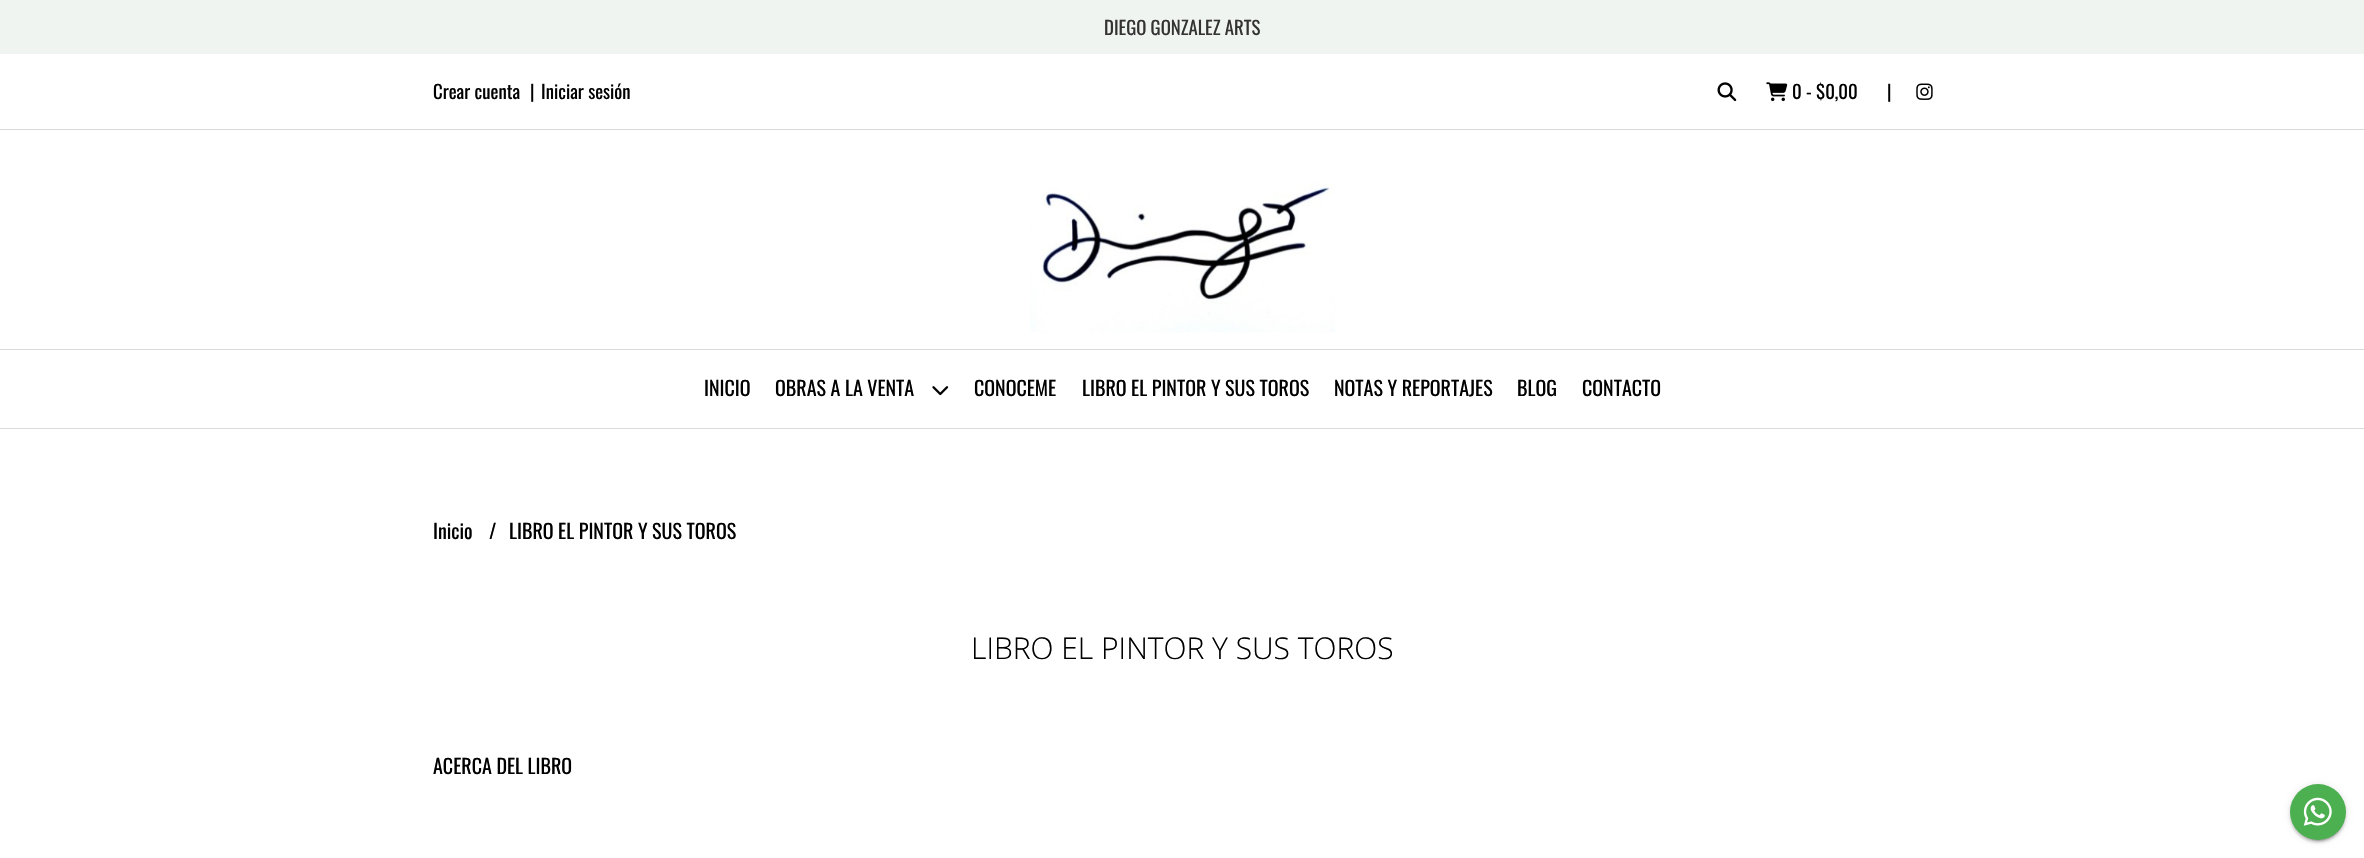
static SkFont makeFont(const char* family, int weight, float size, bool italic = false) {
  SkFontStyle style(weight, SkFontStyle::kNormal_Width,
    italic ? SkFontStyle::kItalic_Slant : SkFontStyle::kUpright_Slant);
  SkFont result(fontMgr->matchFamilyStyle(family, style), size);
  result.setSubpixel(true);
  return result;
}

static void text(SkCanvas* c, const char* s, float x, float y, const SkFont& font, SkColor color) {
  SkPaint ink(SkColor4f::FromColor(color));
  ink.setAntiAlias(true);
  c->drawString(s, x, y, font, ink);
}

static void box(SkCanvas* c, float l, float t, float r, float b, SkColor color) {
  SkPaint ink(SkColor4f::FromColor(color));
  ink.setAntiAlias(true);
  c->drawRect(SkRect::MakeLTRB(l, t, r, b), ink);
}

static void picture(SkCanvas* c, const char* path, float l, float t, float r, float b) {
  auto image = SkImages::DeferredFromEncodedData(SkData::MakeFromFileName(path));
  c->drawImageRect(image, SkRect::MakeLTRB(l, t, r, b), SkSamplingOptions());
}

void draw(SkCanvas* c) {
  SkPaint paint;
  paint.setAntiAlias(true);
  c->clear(0xffffffff);
  box(c, 0, 0, 2364, 54, 0xfff0f4f1);
  SkFont face1 = makeFont("Oswald", 400, 18.75f);
  text(c, "DIEGO GONZALEZ ARTS", 1104, 35, face1, 0xff333333);
  box(c, 0, 129, 2364, 130, 0xffd9d9d9);
  text(c, "Crear cuenta", 433, 99, face1, 0xff000000);
  text(c, "|", 530, 99, face1, 0xff000000);
  text(c, "Iniciar sesión", 541, 99, face1, 0xff000000);
  picture(c, "img_01.png", 1717, 82, 1737, 102);
  picture(c, "img_02.png", 1766, 82, 1788, 102);
  text(c, "0 - $0,00", 1792, 99, face1, 0xff000000);
  text(c, "|", 1887, 99, face1, 0xff000000);
  picture(c, "img_03.png", 1916, 83, 1933, 100);
  picture(c, "img_04.png", 1030, 182, 1335, 333);
  box(c, 0, 349, 2364, 350, 0xffd9d9d9);
  box(c, 0, 428, 2364, 429, 0xffd9d9d9);
  SkFont face2 = makeFont("Oswald", 400, 20);
  text(c, "INICIO", 704, 396, face2, 0xff000000);
  text(c, "OBRAS A LA VENTA", 775, 396, face2, 0xff000000);
  picture(c, "img_05.png", 932, 386, 949, 396);
  text(c, "CONOCEME", 974, 396, face2, 0xff000000);
  text(c, "LIBRO EL PINTOR Y SUS TOROS", 1082, 396, face2, 0xff000000);
  text(c, "NOTAS Y REPORTAJES", 1334, 396, face2, 0xff000000);
  text(c, "BLOG", 1517, 396, face2, 0xff000000);
  text(c, "CONTACTO", 1582, 396, face2, 0xff000000);
  text(c, "Inicio", 433, 539, face2, 0xff000000);
  text(c, "/", 489, 539, face2, 0xff000000);
  text(c, "LIBRO EL PINTOR Y SUS TOROS", 509, 539, face2, 0xff000000);
  SkFont face3 = makeFont("Open Sans", 300, 30);
  text(c, "LIBRO EL PINTOR Y SUS TOROS", 971, 659, face3, 0xff000000);
  text(c, "ACERCA DEL LIBRO", 433, 774, face2, 0xff000000);
  paint.setColor(0x33000000);
  paint.setMaskFilter(SkMaskFilter::MakeBlur(kNormal_SkBlurStyle, 0.5f));
  c->drawRoundRect(SkRect::MakeLTRB(2293, 790, 2344, 841), 25.5f, 25.5f, paint);
  paint.setMaskFilter(nullptr);
  paint.setColor(0x1f000000);
  paint.setMaskFilter(SkMaskFilter::MakeBlur(kNormal_SkBlurStyle, 3));
  c->drawRoundRect(SkRect::MakeLTRB(2290, 785, 2346, 841), 28, 28, paint);
  paint.setMaskFilter(nullptr);
  paint.setColor(0x24000000);
  paint.setMaskFilter(SkMaskFilter::MakeBlur(kNormal_SkBlurStyle, 1));
  c->drawRoundRect(SkRect::MakeLTRB(2290, 786, 2346, 843), 28, 28, paint);
  paint.setMaskFilter(nullptr);
  paint.setColor(0xff4caf50);
  c->drawCircle(2318, 812, 28, paint);
  picture(c, "img_06.png", 2303, 797, 2332, 826);
}
